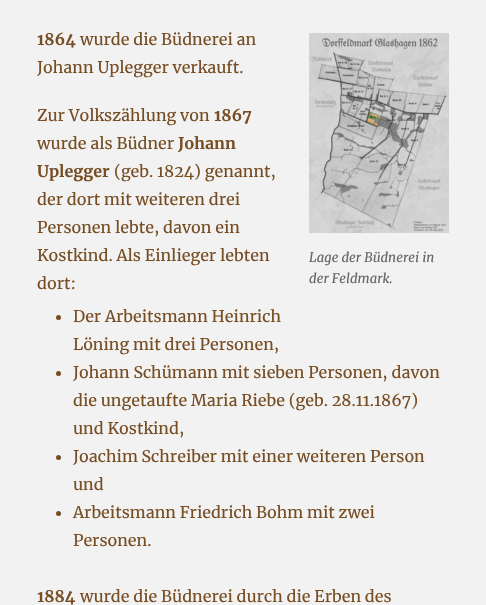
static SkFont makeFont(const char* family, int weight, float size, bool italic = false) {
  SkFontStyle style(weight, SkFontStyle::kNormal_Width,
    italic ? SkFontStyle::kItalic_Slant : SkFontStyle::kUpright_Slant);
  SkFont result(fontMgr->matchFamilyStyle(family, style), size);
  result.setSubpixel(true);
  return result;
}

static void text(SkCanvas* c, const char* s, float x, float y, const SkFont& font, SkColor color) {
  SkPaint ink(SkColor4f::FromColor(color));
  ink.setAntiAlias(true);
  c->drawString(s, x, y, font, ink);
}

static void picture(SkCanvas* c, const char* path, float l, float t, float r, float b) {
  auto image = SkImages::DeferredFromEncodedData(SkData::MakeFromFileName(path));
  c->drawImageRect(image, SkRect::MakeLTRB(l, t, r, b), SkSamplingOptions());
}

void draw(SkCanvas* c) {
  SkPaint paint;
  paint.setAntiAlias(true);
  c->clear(0xfff2f2f2);
  SkFont face1 = makeFont("Merriweather", 700, 16);
  text(c, "1864", 37, 45, face1, 0xff774e24);
  SkFont face2 = makeFont("Merriweather", 400, 16);
  text(c, "wurde die Büdnerei an", 80, 45, face2, 0xff774e24);
  text(c, "Johann Uplegger verkauft.", 37, 73, face2, 0xff774e24);
  text(c, "Zur Volkszählung von", 37, 121, face2, 0xff774e24);
  text(c, "1867", 214, 121, face1, 0xff774e24);
  text(c, "wurde als Büdner", 37, 149, face2, 0xff774e24);
  text(c, "Johann", 178, 149, face1, 0xff774e24);
  text(c, "Uplegger", 37, 177, face1, 0xff774e24);
  text(c, "(geb. 1824) genannt,", 114, 177, face2, 0xff774e24);
  text(c, "der dort mit weiteren drei", 37, 205, face2, 0xff774e24);
  text(c, "Personen lebte, davon ein", 37, 233, face2, 0xff774e24);
  text(c, "Kostkind. Als Einlieger lebten", 37, 261, face2, 0xff774e24);
  text(c, "dort:", 37, 289, face2, 0xff774e24);
  picture(c, "img_01.png", 309, 33, 449, 233);
  SkFont face3 = makeFont("Merriweather", 400, 13, true);
  text(c, "Lage der Büdnerei in", 309, 262, face3, 0xff686868);
  text(c, "der Feldmark.", 309, 283, face3, 0xff686868);
  paint.setColor(0xff774e24);
  c->drawCircle(58.5f, 317.5f, 2.5f, paint);
  text(c, "Der Arbeitsmann Heinrich", 73, 322, face2, 0xff774e24);
  text(c, "Löning mit drei Personen,", 73, 350, face2, 0xff774e24);
  c->drawCircle(58.5f, 373.5f, 2.5f, paint);
  text(c, "Johann Schümann mit sieben Personen, davon", 73, 378, face2, 0xff774e24);
  text(c, "die ungetaufte Maria Riebe (geb. 28.11.1867)", 73, 406, face2, 0xff774e24);
  text(c, "und Kostkind,", 73, 434, face2, 0xff774e24);
  c->drawCircle(58.5f, 457.5f, 2.5f, paint);
  text(c, "Joachim Schreiber mit einer weiteren Person", 73, 462, face2, 0xff774e24);
  text(c, "und", 73, 490, face2, 0xff774e24);
  c->drawCircle(58.5f, 513.5f, 2.5f, paint);
  text(c, "Arbeitsmann Friedrich Bohm mit zwei", 73, 518, face2, 0xff774e24);
  text(c, "Personen.", 73, 546, face2, 0xff774e24);
  text(c, "1884", 37, 602, face1, 0xff774e24);
  text(c, "wurde die Büdnerei durch die Erben des", 80, 602, face2, 0xff774e24);
}
